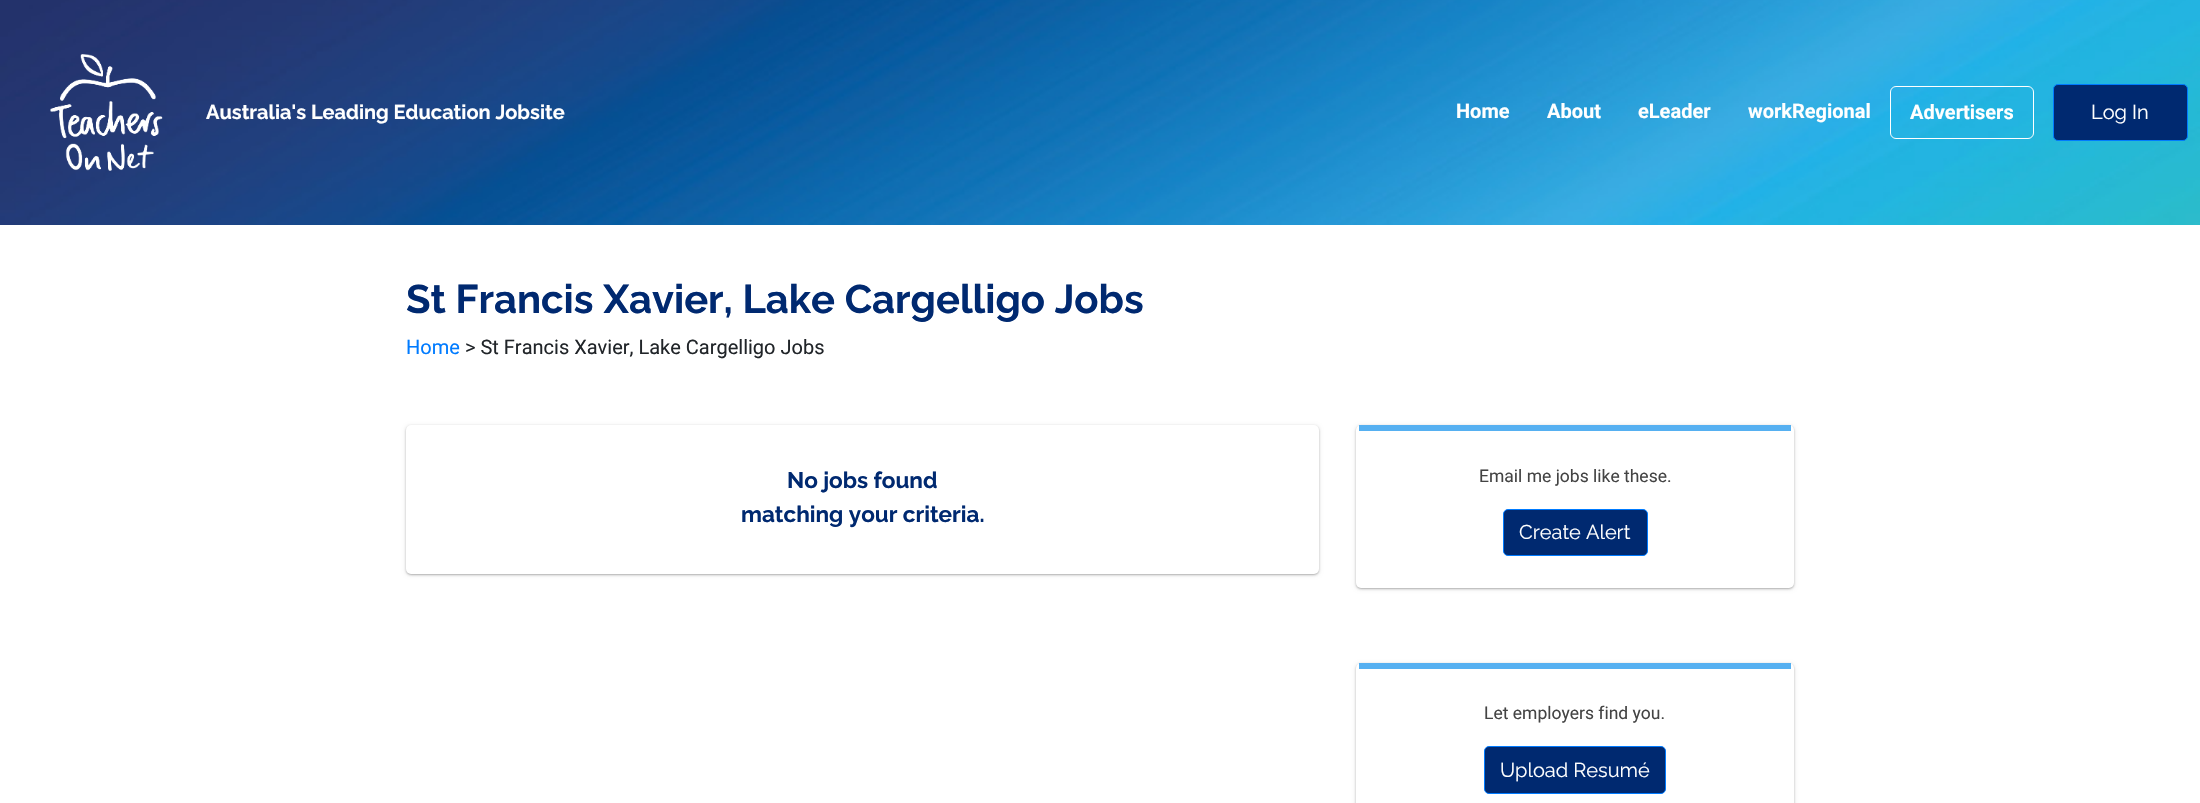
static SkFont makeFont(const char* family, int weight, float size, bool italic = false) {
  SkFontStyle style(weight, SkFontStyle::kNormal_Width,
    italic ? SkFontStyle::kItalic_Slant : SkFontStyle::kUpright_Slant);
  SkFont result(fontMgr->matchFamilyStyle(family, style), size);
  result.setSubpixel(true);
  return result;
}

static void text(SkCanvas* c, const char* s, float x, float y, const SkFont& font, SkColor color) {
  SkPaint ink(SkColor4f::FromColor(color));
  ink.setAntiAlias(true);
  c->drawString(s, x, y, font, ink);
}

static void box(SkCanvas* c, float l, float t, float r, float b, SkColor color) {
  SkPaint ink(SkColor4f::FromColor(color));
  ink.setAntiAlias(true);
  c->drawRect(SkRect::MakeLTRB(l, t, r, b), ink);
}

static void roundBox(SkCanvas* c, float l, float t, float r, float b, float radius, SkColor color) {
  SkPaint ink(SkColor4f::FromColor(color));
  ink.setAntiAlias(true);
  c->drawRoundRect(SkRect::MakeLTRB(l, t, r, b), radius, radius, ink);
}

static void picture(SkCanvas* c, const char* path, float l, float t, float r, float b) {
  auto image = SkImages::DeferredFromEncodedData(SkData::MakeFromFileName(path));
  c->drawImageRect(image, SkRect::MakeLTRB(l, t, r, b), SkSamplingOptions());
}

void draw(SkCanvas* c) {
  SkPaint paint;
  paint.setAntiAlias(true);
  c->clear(0xffffffff);
  picture(c, "img_01.png", 0, 0, 2200, 225);
  picture(c, "img_02.png", 50, 54, 163, 171);
  SkFont face1 = makeFont("Raleway", 700, 20);
  text(c, "Australia's Leading Education Jobsite", 206, 119, face1, 0xffffffff);
  SkFont face2 = makeFont("Roboto", 700, 20);
  text(c, "Home", 1456, 118, face2, 0xffffffff);
  text(c, "About", 1547, 118, face2, 0xffffffff);
  text(c, "eLeader", 1638, 118, face2, 0xffffffff);
  text(c, "workRegional", 1748, 118, face2, 0xffffffff);
  paint.setStyle(SkPaint::kStroke_Style);
  paint.setStrokeWidth(1);
  paint.setColor(0xffffffff);
  c->drawRoundRect(SkRect::MakeLTRB(1890.5f, 86.5f, 2033.5f, 138.5f), 5.5f, 5.5f, paint);
  text(c, "Advertisers", 1910, 119, face2, 0xffffffff);
  paint.setStyle(SkPaint::kFill_Style);
  paint.setColor(0xff002970);
  c->drawRoundRect(SkRect::MakeLTRB(2053.5f, 84.5f, 2187.5f, 140.5f), 4.5f, 4.5f, paint);
  paint.setStyle(SkPaint::kStroke_Style);
  paint.setColor(0xff007bff);
  c->drawRoundRect(SkRect::MakeLTRB(2053.5f, 84.5f, 2187.5f, 140.5f), 4.5f, 4.5f, paint);
  SkFont face3 = makeFont("Raleway", 400, 20);
  text(c, "Log In", 2091, 119, face3, 0xffffffff);
  SkFont face4 = makeFont("Raleway", 700, 40);
  text(c, "St Francis Xavier, Lake Cargelligo Jobs", 406, 313, face4, 0xff002970);
  SkFont face5 = makeFont("Roboto", 400, 20);
  text(c, "Home", 406, 354, face5, 0xff007bff);
  text(c, "> St Francis Xavier, Lake Cargelligo Jobs", 465, 354, face5, 0xff212529);
  paint.setStyle(SkPaint::kFill_Style);
  paint.setColor(0x3d000000);
  paint.setMaskFilter(SkMaskFilter::MakeBlur(kNormal_SkBlurStyle, 1));
  c->drawRoundRect(SkRect::MakeLTRB(406, 426, 1319, 575), 5, 5, paint);
  paint.setMaskFilter(nullptr);
  paint.setColor(0x1f000000);
  paint.setMaskFilter(SkMaskFilter::MakeBlur(kNormal_SkBlurStyle, 2));
  c->drawRoundRect(SkRect::MakeLTRB(406, 426, 1319, 575), 5, 5, paint);
  paint.setMaskFilter(nullptr);
  roundBox(c, 406, 425, 1319, 574, 5, 0xffffffff);
  SkFont face6 = makeFont("Raleway", 700, 22.5f);
  text(c, "No jobs found", 787, 488, face6, 0xff002970);
  text(c, "matching your criteria.", 741, 522, face6, 0xff002970);
  paint.setColor(0x3d000000);
  paint.setMaskFilter(SkMaskFilter::MakeBlur(kNormal_SkBlurStyle, 1));
  c->drawRoundRect(SkRect::MakeLTRB(1356, 426, 1794, 589), 5, 5, paint);
  paint.setMaskFilter(nullptr);
  paint.setColor(0x1f000000);
  paint.setMaskFilter(SkMaskFilter::MakeBlur(kNormal_SkBlurStyle, 2));
  c->drawRoundRect(SkRect::MakeLTRB(1356, 426, 1794, 589), 5, 5, paint);
  paint.setMaskFilter(nullptr);
  roundBox(c, 1356, 425, 1794, 588, 5, 0xffffffff);
  box(c, 1359, 425, 1791, 431, 0xff56b0f1);
  SkFont face7 = makeFont("Roboto", 400, 17.5f);
  text(c, "Email me jobs like these.", 1479, 482, face7, 0xff444444);
  paint.setColor(0xff002970);
  c->drawRoundRect(SkRect::MakeLTRB(1503.5f, 509.5f, 1647.5f, 555.5f), 4.5f, 4.5f, paint);
  paint.setStyle(SkPaint::kStroke_Style);
  paint.setColor(0xff007bff);
  c->drawRoundRect(SkRect::MakeLTRB(1503.5f, 509.5f, 1647.5f, 555.5f), 4.5f, 4.5f, paint);
  text(c, "Create Alert", 1519, 539, face3, 0xffffffff);
  paint.setStyle(SkPaint::kFill_Style);
  paint.setColor(0x3d000000);
  paint.setMaskFilter(SkMaskFilter::MakeBlur(kNormal_SkBlurStyle, 1));
  c->drawRoundRect(SkRect::MakeLTRB(1356, 664, 1794, 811), 5, 5, paint);
  paint.setMaskFilter(nullptr);
  paint.setColor(0x1f000000);
  paint.setMaskFilter(SkMaskFilter::MakeBlur(kNormal_SkBlurStyle, 2));
  c->drawRoundRect(SkRect::MakeLTRB(1356, 664, 1794, 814), 5, 5, paint);
  paint.setMaskFilter(nullptr);
  roundBox(c, 1356, 663, 1794, 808, 5, 0xffffffff);
  box(c, 1359, 663, 1791, 669, 0xff56b0f1);
  text(c, "Let employers find you.", 1484, 719, face7, 0xff444444);
  paint.setColor(0xff002970);
  c->drawRoundRect(SkRect::MakeLTRB(1484.5f, 746.5f, 1665.5f, 793.5f), 4.5f, 4.5f, paint);
  paint.setStyle(SkPaint::kStroke_Style);
  paint.setColor(0xff007bff);
  c->drawRoundRect(SkRect::MakeLTRB(1484.5f, 746.5f, 1665.5f, 793.5f), 4.5f, 4.5f, paint);
  text(c, "Upload Resumé", 1500, 777, face3, 0xffffffff);
}
